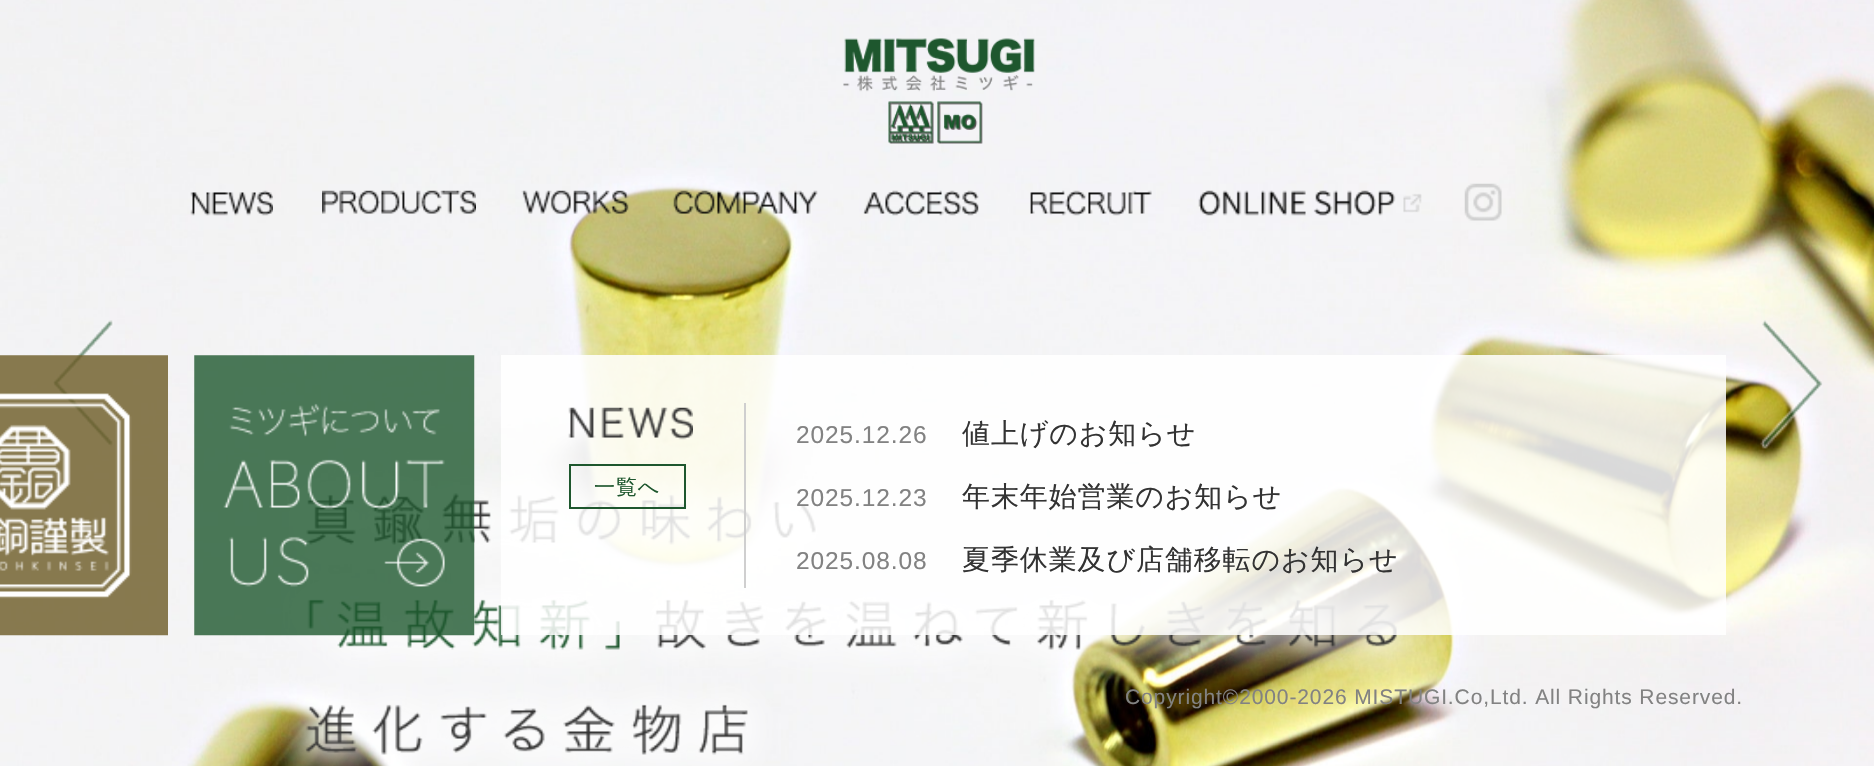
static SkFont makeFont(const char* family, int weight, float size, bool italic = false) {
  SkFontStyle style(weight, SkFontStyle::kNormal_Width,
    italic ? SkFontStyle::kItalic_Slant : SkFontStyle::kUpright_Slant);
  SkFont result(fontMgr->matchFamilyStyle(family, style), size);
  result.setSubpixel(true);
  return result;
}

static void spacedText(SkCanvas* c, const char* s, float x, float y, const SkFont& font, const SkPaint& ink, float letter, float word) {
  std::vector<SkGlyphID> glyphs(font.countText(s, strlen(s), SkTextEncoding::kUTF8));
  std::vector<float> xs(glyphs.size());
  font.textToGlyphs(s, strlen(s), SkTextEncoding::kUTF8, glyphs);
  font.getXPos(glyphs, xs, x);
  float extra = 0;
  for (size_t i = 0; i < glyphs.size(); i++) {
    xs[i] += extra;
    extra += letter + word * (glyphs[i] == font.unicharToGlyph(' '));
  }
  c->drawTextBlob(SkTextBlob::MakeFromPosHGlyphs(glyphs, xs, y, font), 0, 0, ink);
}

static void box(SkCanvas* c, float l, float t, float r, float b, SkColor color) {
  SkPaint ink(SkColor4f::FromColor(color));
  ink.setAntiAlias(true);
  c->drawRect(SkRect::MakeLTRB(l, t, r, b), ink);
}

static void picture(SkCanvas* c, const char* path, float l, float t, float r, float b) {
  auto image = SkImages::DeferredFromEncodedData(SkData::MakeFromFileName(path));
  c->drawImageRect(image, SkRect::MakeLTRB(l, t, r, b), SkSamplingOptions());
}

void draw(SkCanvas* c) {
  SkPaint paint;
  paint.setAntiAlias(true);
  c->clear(0xffffffff);
  picture(c, "img_01.png", 0, 0, 1874, 766);
  picture(c, "img_02.png", 53, 320, 114, 447);
  picture(c, "img_03.png", 1760, 320, 1823, 449);
  picture(c, "img_04.png", 843, 38, 1035, 144);
  picture(c, "img_05.png", 190, 190, 273, 216);
  picture(c, "img_06.png", 322, 190, 476, 214);
  picture(c, "img_07.png", 521, 190, 629, 214);
  picture(c, "img_08.png", 673, 190, 818, 214);
  picture(c, "img_09.png", 863, 190, 979, 216);
  picture(c, "img_10.png", 1030, 190, 1152, 216);
  picture(c, "img_11.png", 1198, 190, 1422, 216);
  picture(c, "img_12.png", 1464, 183, 1502, 221);
  picture(c, "img_13.png", 0, 355, 168, 636);
  picture(c, "img_16.png", 272, 466, 1426, 766);
  picture(c, "img_14.png", 194, 355, 475, 636);
  box(c, 501, 355, 1726, 635, 0xd9ffffff);
  box(c, 744, 403, 746, 588, 0xffcfcfcf);
  picture(c, "img_15.png", 568, 407, 693, 440);
  paint.setStyle(SkPaint::kStroke_Style);
  paint.setStrokeWidth(2);
  paint.setColor(0xff1e572e);
  c->drawRect(SkRect::MakeLTRB(570, 465, 685, 508), paint);
  SkFont face1 = makeFont("WenQuanYi Zen Hei", 500, 21);
  paint.setStyle(SkPaint::kFill_Style);
  spacedText(c, "一覧へ", 594, 494, face1, paint, 0.88f, 0);
  SkFont face2 = makeFont("Liberation Sans", 400, 24.5f);
  paint.setColor(0xff828282);
  spacedText(c, "2025.12.26", 796, 443, face2, paint, 0.88f, 0);
  SkFont face3 = makeFont("WenQuanYi Zen Hei", 500, 28);
  paint.setColor(0xff333333);
  spacedText(c, "値上げのお知らせ", 962, 443, face3, paint, 0.88f, 0);
  paint.setColor(0xff828282);
  spacedText(c, "2025.12.23", 796, 506, face2, paint, 0.88f, 0);
  paint.setColor(0xff333333);
  spacedText(c, "年末年始営業のお知らせ", 962, 506, face3, paint, 0.88f, 0);
  paint.setColor(0xff828282);
  spacedText(c, "2025.08.08", 796, 569, face2, paint, 0.88f, 0);
  paint.setColor(0xff333333);
  spacedText(c, "夏季休業及び店舗移転のお知らせ", 962, 569, face3, paint, 0.88f, 0);
  SkFont face4 = makeFont("Liberation Sans", 400, 21);
  paint.setColor(0xff828282);
  spacedText(c, "Copyright©2000-2026 MISTUGI.Co,Ltd. All Rights Reserved.", 1125, 704, face4, paint, 0.88f, 0);
}
